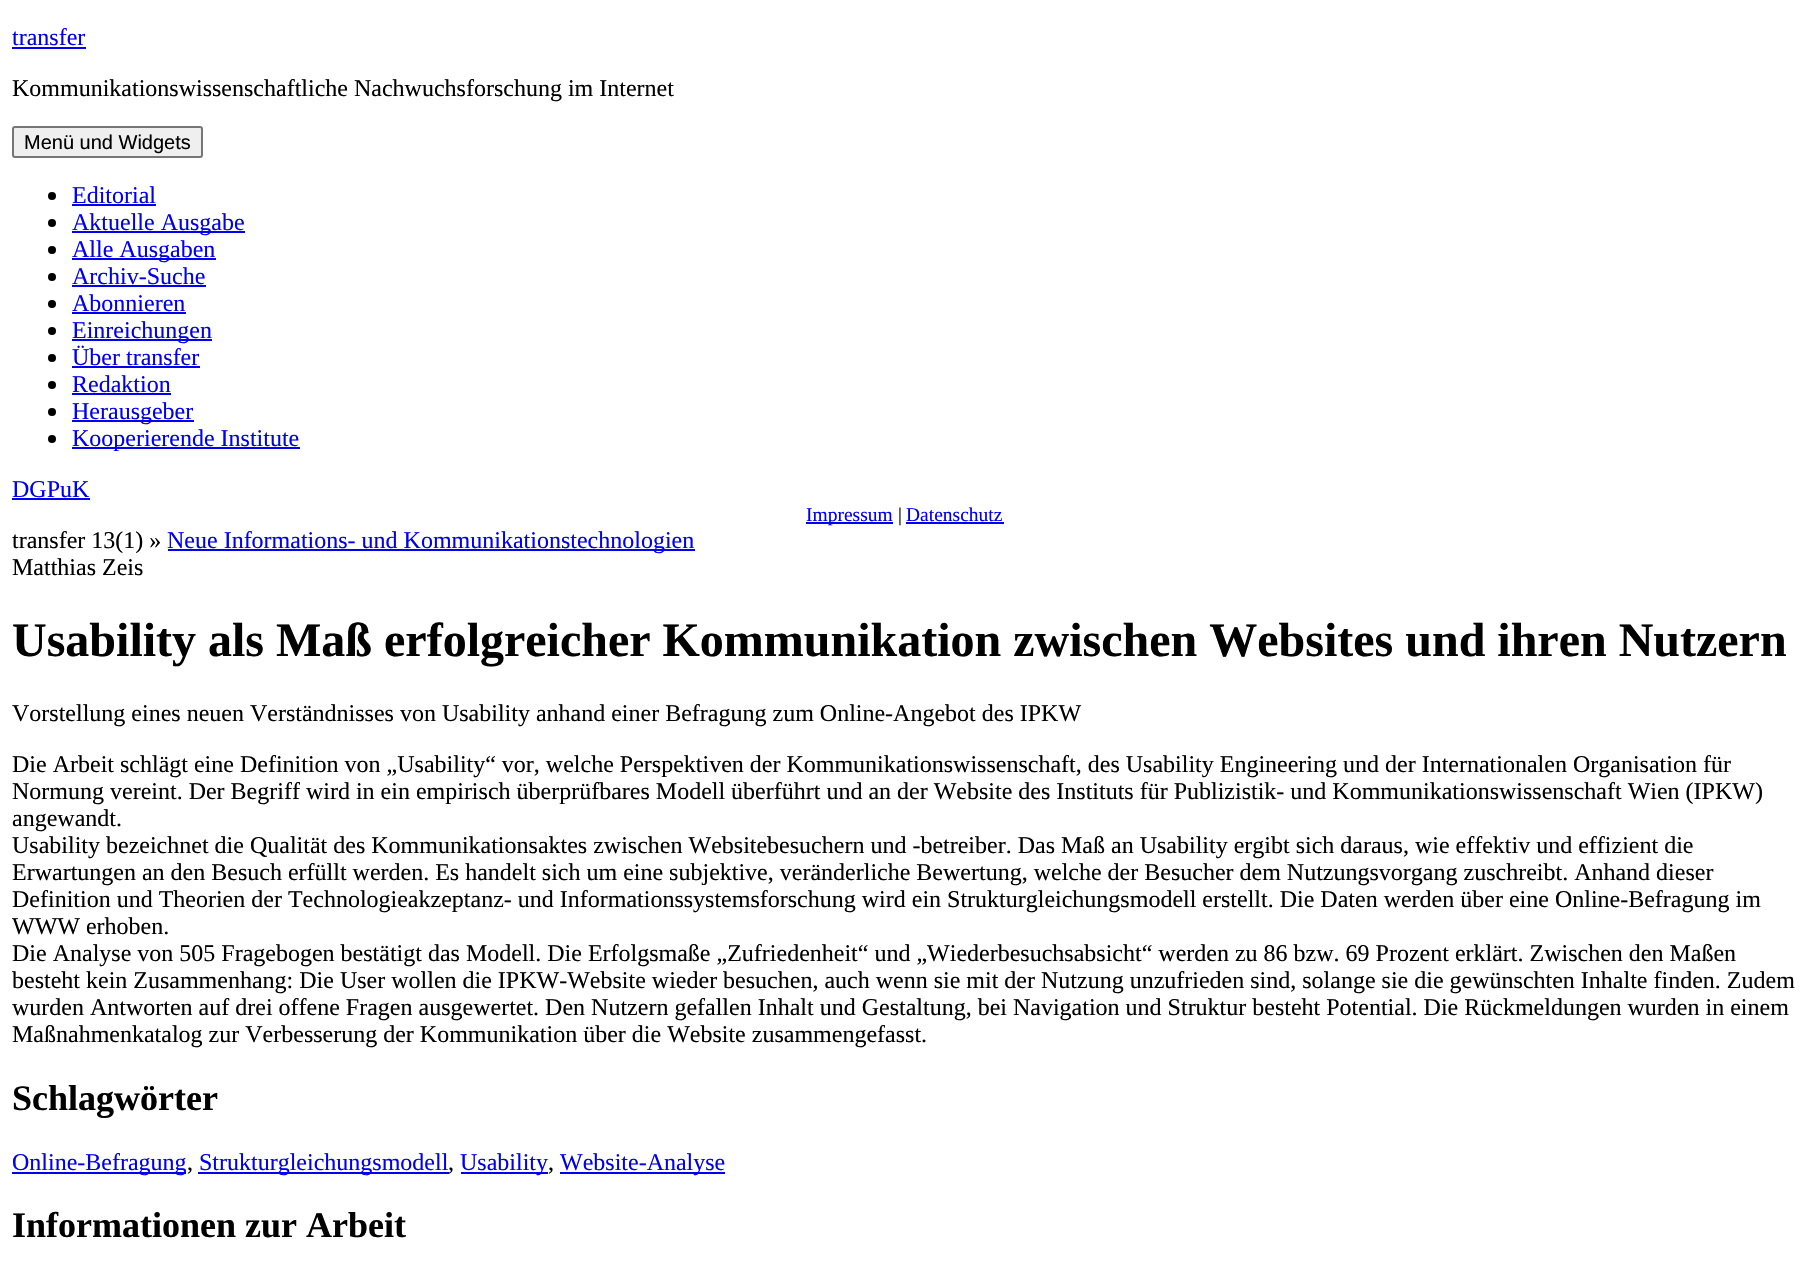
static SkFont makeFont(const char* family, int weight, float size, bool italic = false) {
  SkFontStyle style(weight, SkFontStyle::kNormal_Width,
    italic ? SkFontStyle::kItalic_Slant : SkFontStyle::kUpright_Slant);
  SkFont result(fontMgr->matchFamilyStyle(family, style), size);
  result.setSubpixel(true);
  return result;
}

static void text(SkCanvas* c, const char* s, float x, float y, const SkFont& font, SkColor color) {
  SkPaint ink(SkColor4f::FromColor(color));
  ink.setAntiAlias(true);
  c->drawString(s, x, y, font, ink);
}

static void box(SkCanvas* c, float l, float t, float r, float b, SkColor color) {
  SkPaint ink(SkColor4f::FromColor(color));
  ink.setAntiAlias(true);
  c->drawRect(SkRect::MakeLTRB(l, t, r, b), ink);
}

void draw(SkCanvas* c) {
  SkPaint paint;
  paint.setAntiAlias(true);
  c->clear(0xffffffff);
  SkFont face1 = makeFont("Liberation Serif", 400, 24);
  text(c, "transfer", 12, 45, face1, 0xff0000ee);
  box(c, 12, 47, 86, 49, 0xff0000ee);
  text(c, "Kommunikationswissenschaftliche Nachwuchsforschung im Internet", 12, 96, face1, 0xff000000);
  paint.setColor(0xffefefef);
  c->drawRoundRect(SkRect::MakeLTRB(13, 127, 202, 157), 2, 2, paint);
  paint.setStyle(SkPaint::kStroke_Style);
  paint.setStrokeWidth(2);
  paint.setColor(0xff767676);
  c->drawRoundRect(SkRect::MakeLTRB(13, 127, 202, 157), 2, 2, paint);
  SkFont face2 = makeFont("Liberation Sans", 400, 20);
  text(c, "Menü und Widgets", 24, 149, face2, 0xff000000);
  paint.setStyle(SkPaint::kFill_Style);
  paint.setColor(0xff000000);
  c->drawCircle(52, 196, 4, paint);
  text(c, "Editorial", 72, 203, face1, 0xff0000ee);
  box(c, 72, 204, 156, 206, 0xff0000ee);
  c->drawCircle(52, 223, 4, paint);
  box(c, 72, 231, 245, 233, 0xff0000ee);
  text(c, "Aktuelle Ausgabe", 72, 230, face1, 0xff0000ee);
  c->drawCircle(52, 250, 4, paint);
  box(c, 72, 258, 216, 260, 0xff0000ee);
  text(c, "Alle Ausgaben", 72, 257, face1, 0xff0000ee);
  c->drawCircle(52, 277, 4, paint);
  text(c, "Archiv-Suche", 72, 284, face1, 0xff0000ee);
  box(c, 72, 285, 206, 287, 0xff0000ee);
  c->drawCircle(52, 304, 4, paint);
  text(c, "Abonnieren", 72, 311, face1, 0xff0000ee);
  box(c, 72, 312, 186, 314, 0xff0000ee);
  c->drawCircle(52, 331, 4, paint);
  box(c, 72, 339, 212, 341, 0xff0000ee);
  text(c, "Einreichungen", 72, 338, face1, 0xff0000ee);
  c->drawCircle(52, 358, 4, paint);
  text(c, "Über transfer", 72, 365, face1, 0xff0000ee);
  box(c, 72, 366, 200, 368, 0xff0000ee);
  c->drawCircle(52, 385, 4, paint);
  text(c, "Redaktion", 72, 392, face1, 0xff0000ee);
  box(c, 72, 393, 171, 395, 0xff0000ee);
  c->drawCircle(52, 412, 4, paint);
  box(c, 72, 420, 194, 422, 0xff0000ee);
  text(c, "Herausgeber", 72, 419, face1, 0xff0000ee);
  c->drawCircle(52, 439, 4, paint);
  box(c, 72, 447, 300, 449, 0xff0000ee);
  text(c, "Kooperierende Institute", 72, 446, face1, 0xff0000ee);
  text(c, "DGPuK", 12, 497, face1, 0xff0000ee);
  box(c, 12, 498, 90, 500, 0xff0000ee);
  box(c, 806, 522, 893, 524, 0xff0000ee);
  SkFont face3 = makeFont("Liberation Serif", 400, 19.5f);
  text(c, "Impressum", 806, 521, face3, 0xff0000ee);
  text(c, "|", 898, 521, face3, 0xff000000);
  text(c, "Datenschutz", 906, 521, face3, 0xff0000ee);
  box(c, 906, 522, 1004, 524, 0xff0000ee);
  text(c, "transfer 13(1) »", 12, 548, face1, 0xff000000);
  box(c, 168, 549, 695, 551, 0xff0000ee);
  text(c, "Neue Informations- und Kommunikationstechnologien", 167, 548, face1, 0xff0000ee);
  text(c, "Matthias Zeis", 12, 575, face1, 0xff000000);
  SkFont face4 = makeFont("Liberation Serif", 700, 48);
  text(c, "Usability als Maß erfolgreicher Kommunikation zwischen Websites und ihren Nutzern", 12, 656, face4, 0xff000000);
  text(c, "Vorstellung eines neuen Verständnisses von Usability anhand einer Befragung zum Online-Angebot des IPKW", 12, 721, face1, 0xff000000);
  text(c, "Die Arbeit schlägt eine Definition von „Usability“ vor, welche Perspektiven der Kommunikationswissenschaft, des Usability Engineering und der Internationalen Organisation für", 12, 772, face1, 0xff000000);
  text(c, "Normung vereint. Der Begriff wird in ein empirisch überprüfbares Modell überführt und an der Website des Instituts für Publizistik- und Kommunikationswissenschaft Wien (IPKW)", 12, 799, face1, 0xff000000);
  text(c, "angewandt.", 12, 826, face1, 0xff000000);
  text(c, "Usability bezeichnet die Qualität des Kommunikationsaktes zwischen Websitebesuchern und -betreiber. Das Maß an Usability ergibt sich daraus, wie effektiv und effizient die", 12, 853, face1, 0xff000000);
  text(c, "Erwartungen an den Besuch erfüllt werden. Es handelt sich um eine subjektive, veränderliche Bewertung, welche der Besucher dem Nutzungsvorgang zuschreibt. Anhand dieser", 12, 880, face1, 0xff000000);
  text(c, "Definition und Theorien der Technologieakzeptanz- und Informationssystemsforschung wird ein Strukturgleichungsmodell erstellt. Die Daten werden über eine Online-Befragung im", 12, 907, face1, 0xff000000);
  text(c, "WWW erhoben.", 12, 934, face1, 0xff000000);
  text(c, "Die Analyse von 505 Fragebogen bestätigt das Modell. Die Erfolgsmaße „Zufriedenheit“ und „Wiederbesuchsabsicht“ werden zu 86 bzw. 69 Prozent erklärt. Zwischen den Maßen", 12, 961, face1, 0xff000000);
  text(c, "besteht kein Zusammenhang: Die User wollen die IPKW-Website wieder besuchen, auch wenn sie mit der Nutzung unzufrieden sind, solange sie die gewünschten Inhalte finden. Zudem", 12, 988, face1, 0xff000000);
  text(c, "wurden Antworten auf drei offene Fragen ausgewertet. Den Nutzern gefallen Inhalt und Gestaltung, bei Navigation und Struktur besteht Potential. Die Rückmeldungen wurden in einem", 12, 1015, face1, 0xff000000);
  text(c, "Maßnahmenkatalog zur Verbesserung der Kommunikation über die Website zusammengefasst.", 12, 1042, face1, 0xff000000);
  SkFont face5 = makeFont("Liberation Serif", 700, 36);
  text(c, "Schlagwörter", 12, 1110, face5, 0xff000000);
  box(c, 12, 1172, 186, 1174, 0xff0000ee);
  text(c, "Online-Befragung", 12, 1170, face1, 0xff0000ee);
  text(c, ",", 187, 1170, face1, 0xff000000);
  box(c, 198, 1172, 449, 1174, 0xff0000ee);
  text(c, "Strukturgleichungsmodell", 199, 1170, face1, 0xff0000ee);
  text(c, ",", 448, 1170, face1, 0xff000000);
  box(c, 461, 1172, 548, 1174, 0xff0000ee);
  text(c, "Usability", 460, 1170, face1, 0xff0000ee);
  text(c, ",", 548, 1170, face1, 0xff000000);
  box(c, 560, 1172, 725, 1174, 0xff0000ee);
  text(c, "Website-Analyse", 560, 1170, face1, 0xff0000ee);
  text(c, "Informationen zur Arbeit", 12, 1237, face5, 0xff000000);
}
